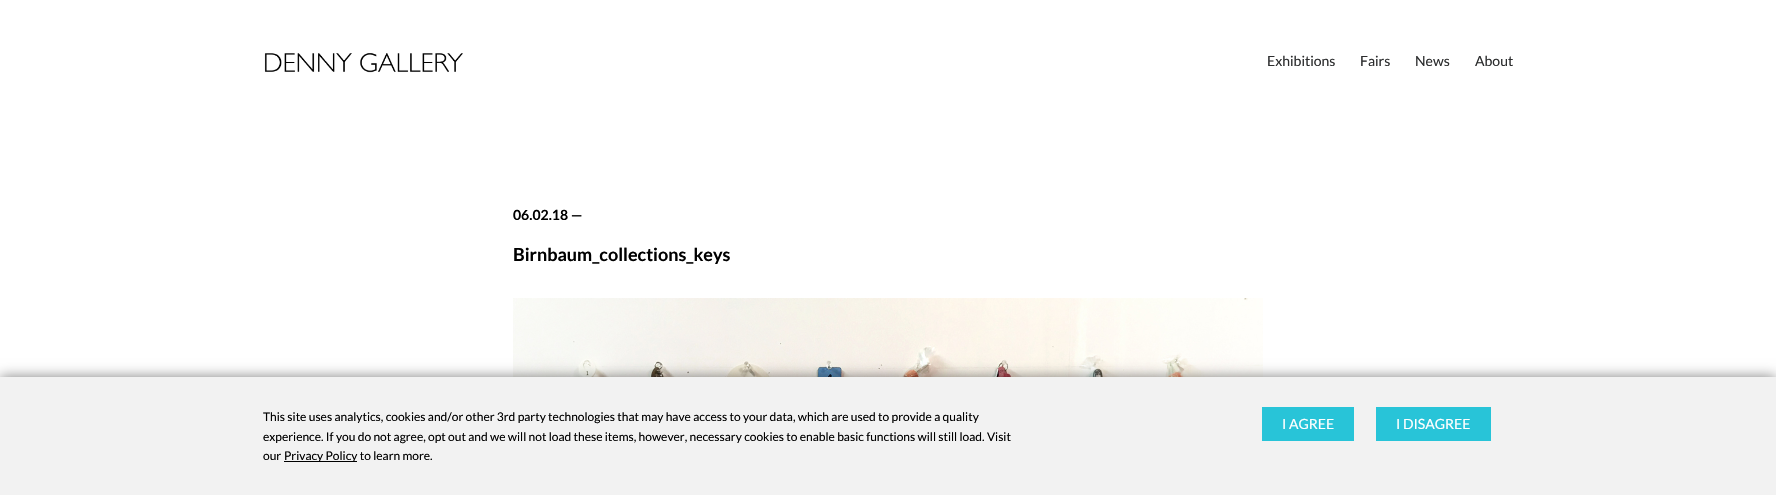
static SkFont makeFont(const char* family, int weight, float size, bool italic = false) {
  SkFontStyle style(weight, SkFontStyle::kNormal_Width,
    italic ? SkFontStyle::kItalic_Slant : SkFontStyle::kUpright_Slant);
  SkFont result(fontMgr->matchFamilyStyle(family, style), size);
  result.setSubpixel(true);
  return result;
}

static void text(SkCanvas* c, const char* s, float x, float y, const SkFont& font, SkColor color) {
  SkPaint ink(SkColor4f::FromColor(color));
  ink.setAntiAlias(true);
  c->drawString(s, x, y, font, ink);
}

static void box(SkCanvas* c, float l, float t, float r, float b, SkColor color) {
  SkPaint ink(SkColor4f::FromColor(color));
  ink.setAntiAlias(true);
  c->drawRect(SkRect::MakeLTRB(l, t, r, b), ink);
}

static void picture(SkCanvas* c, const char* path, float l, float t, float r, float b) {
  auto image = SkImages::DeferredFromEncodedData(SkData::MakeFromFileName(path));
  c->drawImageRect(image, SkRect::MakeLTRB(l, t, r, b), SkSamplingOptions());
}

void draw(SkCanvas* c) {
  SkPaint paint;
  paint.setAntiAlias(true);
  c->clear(0xffffffff);
  picture(c, "img_01.png", 264, 53, 463, 73);
  SkFont face1 = makeFont("Lato", 400, 14);
  text(c, "Exhibitions", 1267, 66, face1, 0xff2c2d2e);
  text(c, "Fairs", 1360, 66, face1, 0xff2c2d2e);
  text(c, "News", 1415, 66, face1, 0xff2c2d2e);
  text(c, "About", 1475, 66, face1, 0xff2c2d2e);
  SkFont face2 = makeFont("Lato", 700, 14);
  text(c, "06.02.18 —", 513, 220, face2, 0xff000000);
  SkFont face3 = makeFont("Lato", 700, 18);
  text(c, "Birnbaum_collections_keys", 513, 261, face3, 0xff000000);
  picture(c, "img_02.png", 513, 298, 1263, 377);
  paint.setColor(0x80000000);
  paint.setMaskFilter(SkMaskFilter::MakeBlur(kNormal_SkBlurStyle, 6.5f));
  c->drawRect(SkRect::MakeLTRB(0, 377, 1776, 495), paint);
  paint.setMaskFilter(nullptr);
  box(c, 0, 377, 1776, 495, 0xfff2f2f2);
  SkFont face4 = makeFont("Lato", 400, 12);
  text(c, "This site uses analytics, cookies and/or other 3rd party technologies that may have access to your data, which are used to provide a quality", 263, 421, face4, 0xff000000);
  text(c, "experience. If you do not agree, opt out and we will not load these items, however, necessary cookies to enable basic functions will still load. Visit", 263, 441, face4, 0xff000000);
  text(c, "our", 263, 460, face4, 0xff000000);
  box(c, 284, 461, 357, 462, 0xff000000);
  text(c, "Privacy Policy to learn more.", 284, 460, face4, 0xff000000);
  box(c, 1262, 407, 1354, 441, 0xff28c4d8);
  text(c, "I AGREE", 1282, 429, face1, 0xffffffff);
  box(c, 1376, 407, 1491, 441, 0xff28c4d8);
  text(c, "I DISAGREE", 1396, 429, face1, 0xffffffff);
}
